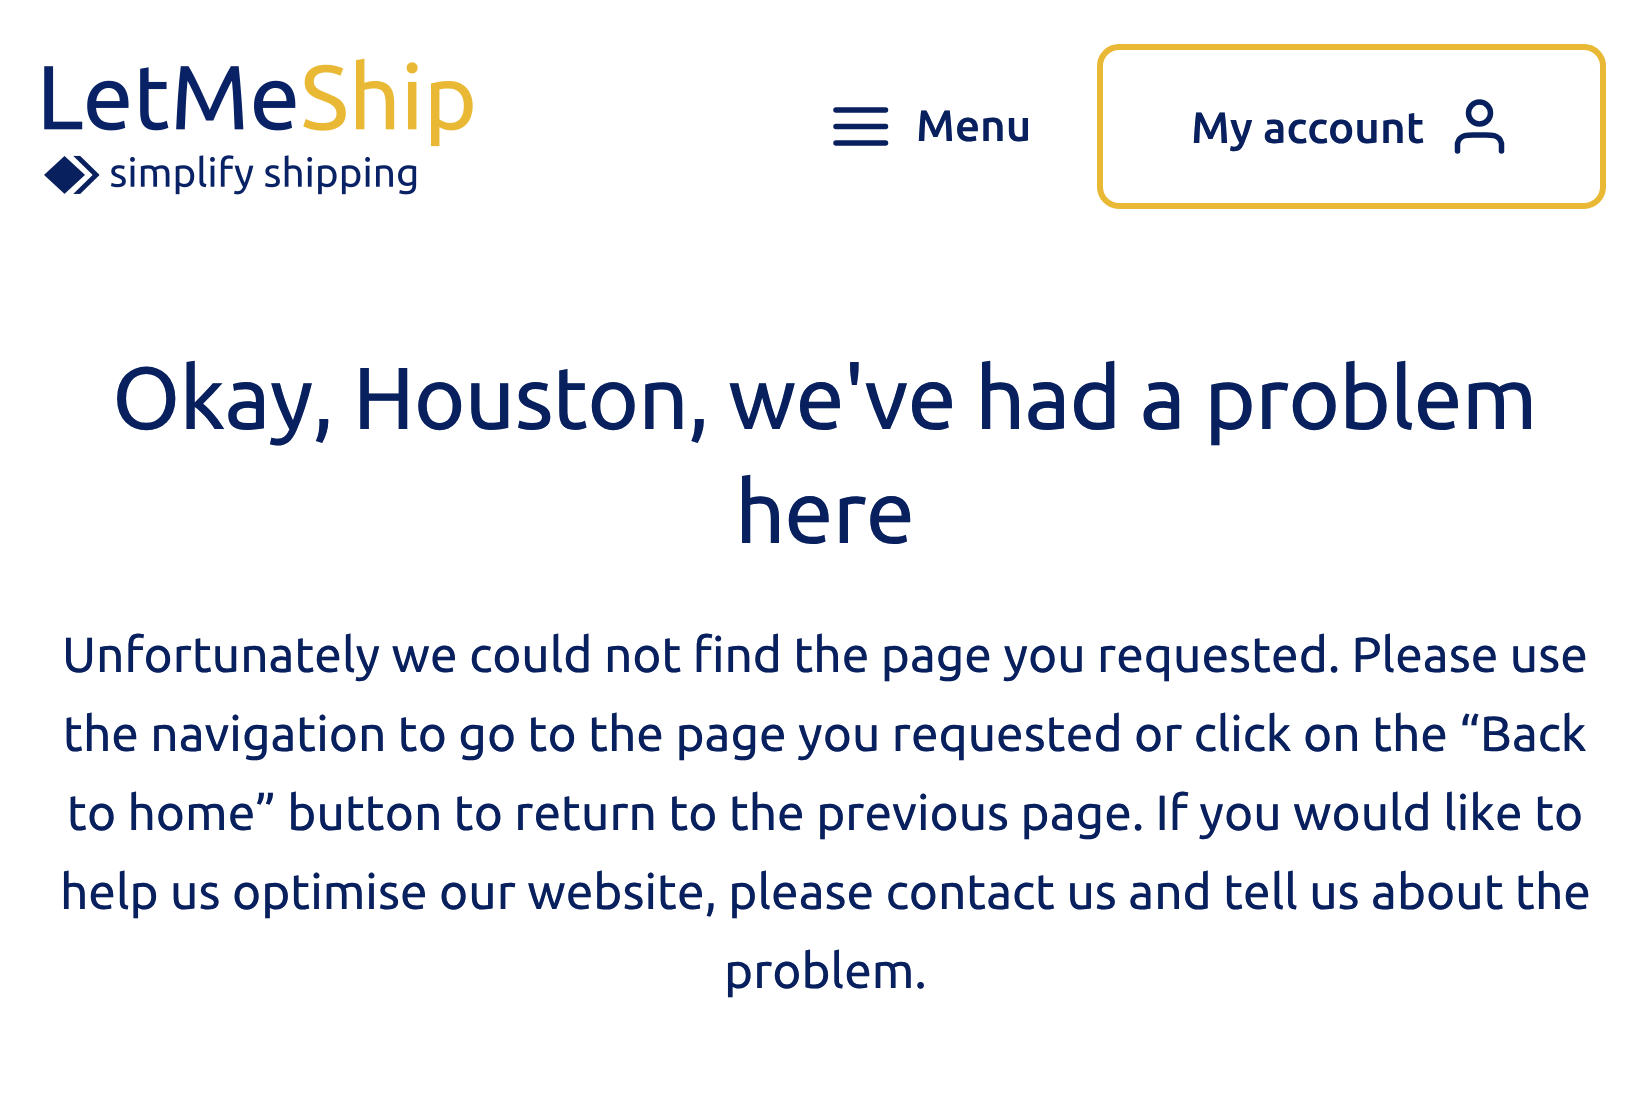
static SkFont makeFont(const char* family, int weight, float size, bool italic = false) {
  SkFontStyle style(weight, SkFontStyle::kNormal_Width,
    italic ? SkFontStyle::kItalic_Slant : SkFontStyle::kUpright_Slant);
  SkFont result(fontMgr->matchFamilyStyle(family, style), size);
  result.setSubpixel(true);
  return result;
}

static void text(SkCanvas* c, const char* s, float x, float y, const SkFont& font, SkColor color) {
  SkPaint ink(SkColor4f::FromColor(color));
  ink.setAntiAlias(true);
  c->drawString(s, x, y, font, ink);
}

static void spacedText(SkCanvas* c, const char* s, float x, float y, const SkFont& font, const SkPaint& ink, float letter, float word) {
  std::vector<SkGlyphID> glyphs(font.countText(s, strlen(s), SkTextEncoding::kUTF8));
  std::vector<float> xs(glyphs.size());
  font.textToGlyphs(s, strlen(s), SkTextEncoding::kUTF8, glyphs);
  font.getXPos(glyphs, xs, x);
  float extra = 0;
  for (size_t i = 0; i < glyphs.size(); i++) {
    xs[i] += extra;
    extra += letter + word * (glyphs[i] == font.unicharToGlyph(' '));
  }
  c->drawTextBlob(SkTextBlob::MakeFromPosHGlyphs(glyphs, xs, y, font), 0, 0, ink);
}

static void picture(SkCanvas* c, const char* path, float l, float t, float r, float b) {
  auto image = SkImages::DeferredFromEncodedData(SkData::MakeFromFileName(path));
  c->drawImageRect(image, SkRect::MakeLTRB(l, t, r, b), SkSamplingOptions());
}

void draw(SkCanvas* c) {
  SkPaint paint;
  paint.setAntiAlias(true);
  c->clear(0xffffffff);
  picture(c, "img_01.png", 44, 58, 473, 195);
  paint.setStyle(SkPaint::kStroke_Style);
  paint.setStrokeWidth(5.5f);
  paint.setStrokeCap(SkPaint::kRound_Cap);
  paint.setStrokeJoin(SkPaint::kRound_Join);
  paint.setColor(0xff08205e);
  c->drawPath(SkPathBuilder().moveTo(836, 126.5f).lineTo(885.5f, 126.5f).moveTo(836, 110).lineTo(885.5f, 110).moveTo(836, 143).lineTo(885.5f, 143).detach(), paint);
  SkFont face1 = makeFont("Ubuntu", 500, 44);
  text(c, "Menu", 916, 141, face1, 0xff08205e);
  paint.setStrokeWidth(6);
  paint.setStrokeCap(SkPaint::kButt_Cap);
  paint.setStrokeJoin(SkPaint::kMiter_Join);
  paint.setColor(0xffe9b935);
  c->drawRoundRect(SkRect::MakeLTRB(1100, 47, 1603, 206), 19, 19, paint);
  text(c, "My account", 1191, 143, face1, 0xff08205e);
  paint.setStrokeWidth(5.5f);
  paint.setStrokeCap(SkPaint::kRound_Cap);
  paint.setStrokeJoin(SkPaint::kRound_Join);
  paint.setColor(0xff08205e);
  c->drawPath(SkPathBuilder().moveTo(1501.5f, 151).lineTo(1501.5f, 143.5f).cubicTo(1499, 133, 1487.5f, 135, 1479.5f, 135).cubicTo(1471.5f, 135, 1460, 133, 1457.5f, 143.5f).lineTo(1457.5f, 151).detach(), paint);
  paint.setStrokeCap(SkPaint::kButt_Cap);
  paint.setStrokeJoin(SkPaint::kMiter_Join);
  c->drawCircle(1479.5f, 113, 11, paint);
  SkFont face2 = makeFont("Ubuntu", 400, 88);
  paint.setStyle(SkPaint::kFill_Style);
  spacedText(c, "Okay, Houston, we've had a problem", 112, 429, face2, paint, -0.9f, 0);
  spacedText(c, "here", 735, 543, face2, paint, -0.9f, 0);
  SkFont face3 = makeFont("Ubuntu", 400, 49.5f);
  text(c, "Unfortunately we could not find the page you requested. Please use", 62, 672, face3, 0xff08205e);
  text(c, "the navigation to go to the page you requested or click on the “Back", 63, 751, face3, 0xff08205e);
  text(c, "to home” button to return to the previous page. If you would like to", 67, 830, face3, 0xff08205e);
  text(c, "help us optimise our website, please contact us and tell us about the", 60, 909, face3, 0xff08205e);
  text(c, "problem.", 724, 988, face3, 0xff08205e);
}
